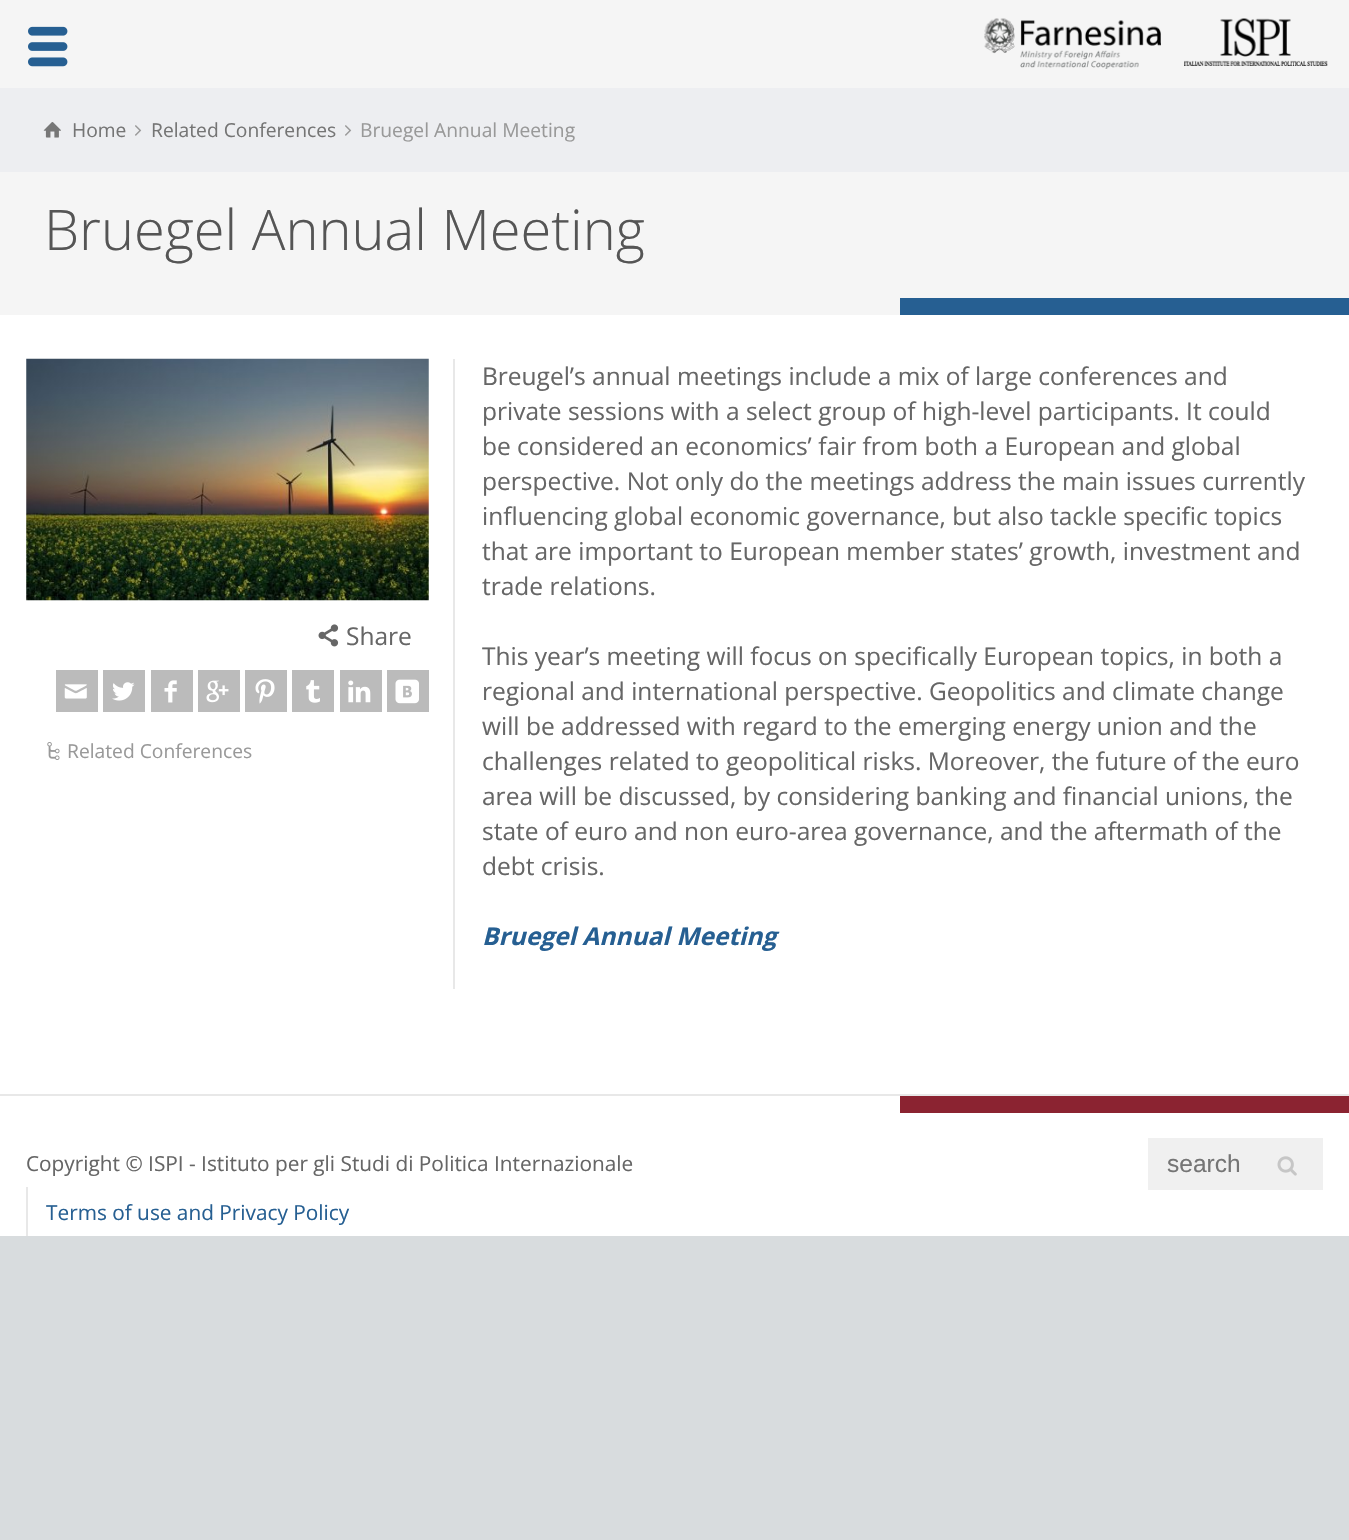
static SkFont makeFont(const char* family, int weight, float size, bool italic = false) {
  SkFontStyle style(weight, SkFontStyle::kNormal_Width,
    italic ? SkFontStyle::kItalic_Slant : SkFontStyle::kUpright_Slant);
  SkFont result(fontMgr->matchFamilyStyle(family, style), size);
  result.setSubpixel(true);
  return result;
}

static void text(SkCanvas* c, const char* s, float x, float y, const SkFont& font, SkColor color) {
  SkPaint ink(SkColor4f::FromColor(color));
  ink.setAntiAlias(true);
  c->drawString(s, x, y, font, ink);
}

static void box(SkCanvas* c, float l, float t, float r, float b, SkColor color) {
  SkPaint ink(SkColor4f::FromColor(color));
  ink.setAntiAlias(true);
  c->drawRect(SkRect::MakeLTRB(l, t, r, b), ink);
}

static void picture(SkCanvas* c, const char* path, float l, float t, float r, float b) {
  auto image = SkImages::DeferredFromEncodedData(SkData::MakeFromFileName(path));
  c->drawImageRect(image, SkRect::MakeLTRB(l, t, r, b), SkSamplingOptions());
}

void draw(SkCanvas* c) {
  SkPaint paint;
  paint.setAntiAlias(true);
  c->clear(0xffd8dcde);
  box(c, 0, 0, 1349, 315, 0xfff5f5f5);
  picture(c, "img_01.png", 28, 26, 68, 67);
  picture(c, "img_02.png", 984, 18, 1161, 69);
  picture(c, "img_03.png", 1184, 18, 1328, 66);
  box(c, 0, 88, 1349, 172, 0xffedeef1);
  picture(c, "img_04.png", 43, 122, 61, 138);
  SkFont face1 = makeFont("Open Sans", 400, 19.25f);
  text(c, "Home", 72, 137, face1, 0xff757575);
  picture(c, "img_05.png", 135, 125, 142, 136);
  text(c, "Related Conferences", 151, 137, face1, 0xff757575);
  picture(c, "img_05.png", 345, 125, 352, 136);
  text(c, "Bruegel Annual Meeting", 360, 137, face1, 0xff999999);
  SkFont face2 = makeFont("Open Sans", 300, 56);
  text(c, "Bruegel Annual Meeting", 44, 250, face2, 0xff555555);
  box(c, 900, 298, 1349, 315, 0xff265f92);
  box(c, 0, 315, 1349, 1236, 0xffffffff);
  picture(c, "img_06.png", 26, 358, 429, 601);
  picture(c, "img_07.png", 318, 624, 339, 647);
  SkFont face3 = makeFont("Open Sans", 400, 24.5f);
  text(c, "Share", 346, 645, face3, 0xff666666);
  box(c, 56, 670, 98, 712, 0xffbbbbbb);
  picture(c, "img_08.png", 64, 684, 87, 699);
  box(c, 103, 670, 145, 712, 0xffbbbbbb);
  picture(c, "img_09.png", 112, 682, 135, 701);
  box(c, 151, 670, 193, 712, 0xffbbbbbb);
  picture(c, "img_10.png", 164, 680, 177, 703);
  box(c, 198, 670, 240, 712, 0xffbbbbbb);
  picture(c, "img_11.png", 206, 680, 229, 703);
  box(c, 245, 670, 287, 712, 0xffbbbbbb);
  picture(c, "img_12.png", 255, 679, 275, 704);
  box(c, 292, 670, 334, 712, 0xffbbbbbb);
  picture(c, "img_13.png", 306, 680, 320, 703);
  box(c, 340, 670, 382, 712, 0xffbbbbbb);
  picture(c, "img_14.png", 348, 680, 371, 703);
  box(c, 387, 670, 429, 712, 0xffbbbbbb);
  picture(c, "img_15.png", 395, 679, 419, 704);
  picture(c, "img_16.png", 47, 742, 60, 760);
  text(c, "Related Conferences", 67, 758, face1, 0xff999999);
  box(c, 453, 359, 455, 989, 0xffe8e8e8);
  text(c, "Breugel’s annual meetings include a mix of large conferences and", 482, 385, face3, 0xff666666);
  text(c, "private sessions with a select group of high-level participants. It could", 482, 420, face3, 0xff666666);
  text(c, "be considered an economics’ fair from both a European and global", 482, 455, face3, 0xff666666);
  text(c, "perspective. Not only do the meetings address the main issues currently", 482, 490, face3, 0xff666666);
  text(c, "influencing global economic governance, but also tackle specific topics", 482, 525, face3, 0xff666666);
  text(c, "that are important to European member states’ growth, investment and", 482, 560, face3, 0xff666666);
  text(c, "trade relations.", 482, 595, face3, 0xff666666);
  text(c, "This year’s meeting will focus on specifically European topics, in both a", 482, 665, face3, 0xff666666);
  text(c, "regional and international perspective. Geopolitics and climate change", 482, 700, face3, 0xff666666);
  text(c, "will be addressed with regard to the emerging energy union and the", 482, 735, face3, 0xff666666);
  text(c, "challenges related to geopolitical risks. Moreover, the future of the euro", 482, 770, face3, 0xff666666);
  text(c, "area will be discussed, by considering banking and financial unions, the", 482, 805, face3, 0xff666666);
  text(c, "state of euro and non euro-area governance, and the aftermath of the", 482, 840, face3, 0xff666666);
  text(c, "debt crisis.", 482, 875, face3, 0xff666666);
  SkFont face4 = makeFont("Open Sans", 700, 24.5f, true);
  text(c, "Bruegel Annual Meeting", 482, 945, face4, 0xff265f92);
  box(c, 0, 1094, 1349, 1096, 0xffe8e8e8);
  box(c, 900, 1096, 1349, 1113, 0xff8b2331);
  SkFont face5 = makeFont("Open Sans", 400, 20.8f);
  text(c, "Copyright © ISPI - Istituto per gli Studi di Politica Internazionale", 26, 1171, face5, 0xff666666);
  box(c, 26, 1187, 28, 1236, 0xffe8e8e8);
  text(c, "Terms of use and Privacy Policy", 46, 1220, face5, 0xff265f92);
  box(c, 1148, 1138, 1323, 1190, 0xfff0f0f0);
  SkFont face6 = makeFont("Liberation Sans", 400, 24.5f);
  text(c, "search", 1167, 1172, face6, 0xff757575);
  picture(c, "img_17.png", 1277, 1156, 1297, 1176);
}
